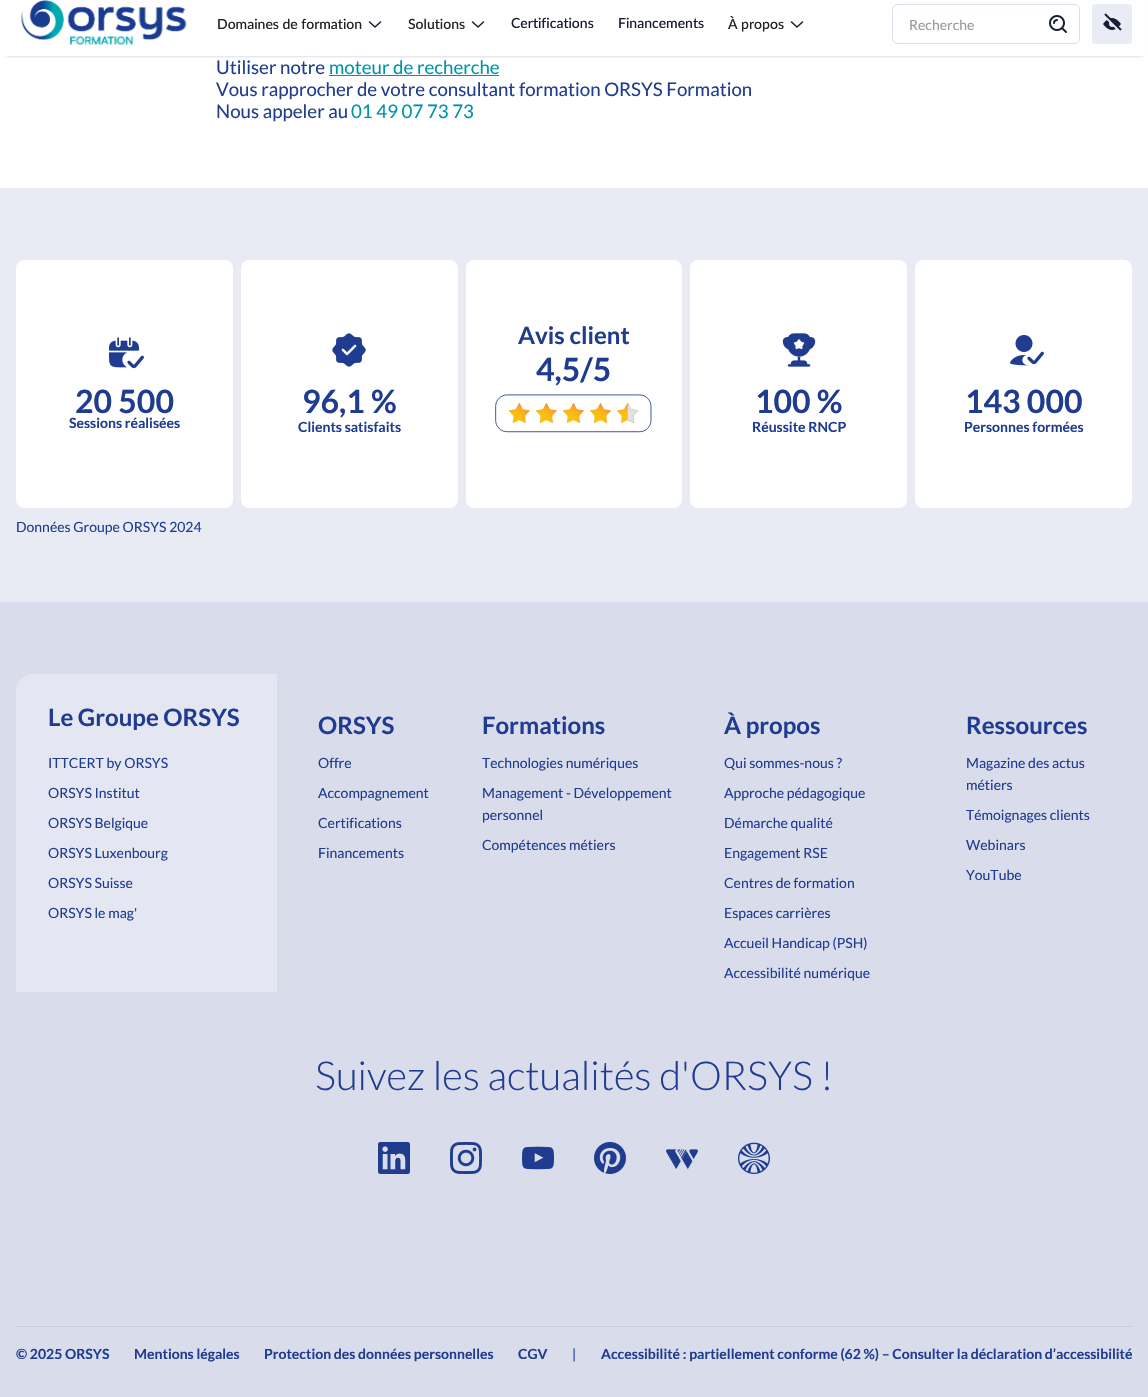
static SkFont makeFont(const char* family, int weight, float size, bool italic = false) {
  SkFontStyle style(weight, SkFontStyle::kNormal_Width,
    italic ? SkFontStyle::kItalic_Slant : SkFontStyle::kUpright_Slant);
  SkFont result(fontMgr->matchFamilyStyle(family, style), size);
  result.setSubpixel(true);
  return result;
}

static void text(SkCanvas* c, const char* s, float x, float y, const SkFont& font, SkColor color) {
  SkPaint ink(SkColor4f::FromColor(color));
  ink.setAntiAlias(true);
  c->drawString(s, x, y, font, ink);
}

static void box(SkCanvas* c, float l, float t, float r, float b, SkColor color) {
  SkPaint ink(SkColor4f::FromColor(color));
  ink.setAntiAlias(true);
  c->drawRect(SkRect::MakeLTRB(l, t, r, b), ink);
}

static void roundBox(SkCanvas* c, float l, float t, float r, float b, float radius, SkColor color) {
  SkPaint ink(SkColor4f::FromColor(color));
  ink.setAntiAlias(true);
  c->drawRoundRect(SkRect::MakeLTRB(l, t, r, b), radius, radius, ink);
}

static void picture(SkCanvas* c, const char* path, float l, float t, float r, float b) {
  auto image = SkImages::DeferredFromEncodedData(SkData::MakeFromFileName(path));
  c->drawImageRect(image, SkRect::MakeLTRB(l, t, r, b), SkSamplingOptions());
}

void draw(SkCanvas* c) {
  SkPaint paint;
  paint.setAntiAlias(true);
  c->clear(0xffffffff);
  paint.setColor(0xff1f3c90);
  paint.setMaskFilter(SkMaskFilter::MakeBlur(kNormal_SkBlurStyle, 2));
  c->drawRect(SkRect::MakeLTRB(6, -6, 1142, 54), paint);
  paint.setMaskFilter(nullptr);
  box(c, 1, 0, 1147, 56, 0xffffffff);
  picture(c, "img_01.png", 21, 0, 187, 46);
  SkFont face1 = makeFont("Lato", 500, 14);
  text(c, "Domaines de formation", 217, 29, face1, 0xff222222);
  paint.setStyle(SkPaint::kStroke_Style);
  paint.setStrokeWidth(1.5f);
  paint.setStrokeCap(SkPaint::kRound_Cap);
  paint.setStrokeJoin(SkPaint::kRound_Join);
  paint.setColor(0xff161d31);
  c->drawPath(SkPathBuilder().moveTo(369.5f, 22).lineTo(375, 27).lineTo(380.5f, 22).detach(), paint);
  text(c, "Solutions", 408, 29, face1, 0xff222222);
  c->drawPath(SkPathBuilder().moveTo(472.5f, 22).lineTo(478, 27).lineTo(483.5f, 22).detach(), paint);
  text(c, "Certifications", 511, 28, face1, 0xff161d31);
  text(c, "Financements", 618, 28, face1, 0xff161d31);
  text(c, "À propos", 728, 29, face1, 0xff222222);
  c->drawPath(SkPathBuilder().moveTo(791.5f, 22).lineTo(797, 27).lineTo(802.5f, 22).detach(), paint);
  paint.setStrokeWidth(1);
  paint.setStrokeCap(SkPaint::kButt_Cap);
  paint.setStrokeJoin(SkPaint::kMiter_Join);
  paint.setColor(0xffd8dceb);
  c->drawRoundRect(SkRect::MakeLTRB(892.5f, 4.5f, 1079.5f, 43.5f), 5.5f, 5.5f, paint);
  SkFont face2 = makeFont("Lato", 400, 14);
  text(c, "Recherche", 909, 30, face2, 0xff999999);
  picture(c, "img_02.png", 1049, 15, 1067, 33);
  roundBox(c, 1092, 4, 1132, 44, 4, 0xffe9ecf4);
  picture(c, "img_03.png", 1103, 13, 1122, 31);
  SkFont face3 = makeFont("Lato", 400, 18.7f);
  text(c, "Utiliser notre", 216, 74, face3, 0xff1f3c90);
  text(c, "moteur de recherche", 329, 74, face3, 0xff0094aa);
  box(c, 329, 75, 499, 76, 0xff0094aa);
  text(c, "Vous rapprocher de votre consultant formation ORSYS Formation", 216, 96, face3, 0xff1f3c90);
  text(c, "Nous appeler au", 216, 118, face3, 0xff1f3c90);
  text(c, "01 49 07 73 73", 351, 118, face3, 0xff0094aa);
  box(c, 0, 602, 1148, 1397, 0xffd8dceb);
  box(c, 0, 188, 1148, 602, 0xffe8ebf3);
  roundBox(c, 466, 260, 682, 508, 8, 0xffffffff);
  SkFont face4 = makeFont("Lato", 700, 24);
  text(c, "Avis client", 518, 344, face4, 0xff1f3c90);
  SkFont face5 = makeFont("Lato", 700, 32);
  text(c, "4,5/5", 536, 381, face5, 0xff1f3c90);
  picture(c, "img_04.png", 495, 394, 652, 433);
  roundBox(c, 16, 260, 233, 508, 8, 0xffffffff);
  picture(c, "img_05.png", 109, 337, 144, 369);
  text(c, "20 500", 75, 413, face5, 0xff1f3c90);
  SkFont face6 = makeFont("Lato", 700, 14);
  text(c, "Sessions réalisées", 69, 428, face6, 0xff1f3c90);
  roundBox(c, 241, 260, 458, 508, 8, 0xffffffff);
  picture(c, "img_06.png", 332, 333, 366, 367);
  text(c, "96,1 %", 302, 413, face5, 0xff1f3c90);
  text(c, "Clients satisfaits", 298, 432, face6, 0xff1f3c90);
  roundBox(c, 690, 260, 907, 508, 8, 0xffffffff);
  picture(c, "img_07.png", 782, 333, 816, 367);
  text(c, "100 %", 755, 413, face5, 0xff1f3c90);
  text(c, "Réussite RNCP", 752, 432, face6, 0xff1f3c90);
  roundBox(c, 915, 260, 1132, 508, 8, 0xffffffff);
  picture(c, "img_08.png", 1010, 335, 1044, 366);
  text(c, "143 000", 965, 413, face5, 0xff1f3c90);
  text(c, "Personnes formées", 964, 432, face6, 0xff1f3c90);
  text(c, "Données Groupe ORSYS 2024", 16, 532, face2, 0xff1f3c90);
  paint.setStyle(SkPaint::kFill_Style);
  paint.setColor(0xffe4e7f1);
  c->drawPath(SkPathBuilder().moveTo(32, 674).lineTo(277, 674).lineTo(277, 992).lineTo(16, 992).lineTo(16, 690).cubicTo(16, 681, 23, 674, 32, 674).close().detach(), paint);
  text(c, "Le Groupe ORSYS", 48, 726, face4, 0xff1f3c90);
  text(c, "ITTCERT by ORSYS", 48, 768, face2, 0xff1f3c90);
  text(c, "ORSYS Institut", 48, 798, face2, 0xff1f3c90);
  text(c, "ORSYS Belgique", 48, 828, face2, 0xff1f3c90);
  text(c, "ORSYS Luxenbourg", 48, 858, face2, 0xff1f3c90);
  text(c, "ORSYS Suisse", 48, 888, face2, 0xff1f3c90);
  text(c, "ORSYS le mag'", 48, 918, face2, 0xff1f3c90);
  text(c, "ORSYS", 318, 734, face4, 0xff1f3c90);
  text(c, "Offre", 318, 768, face2, 0xff1f3c90);
  text(c, "Accompagnement", 318, 798, face2, 0xff1f3c90);
  text(c, "Certifications", 318, 828, face2, 0xff1f3c90);
  text(c, "Financements", 318, 858, face2, 0xff1f3c90);
  text(c, "Formations", 482, 734, face4, 0xff1f3c90);
  text(c, "Technologies numériques", 482, 768, face2, 0xff1f3c90);
  text(c, "Management - Développement", 482, 798, face2, 0xff1f3c90);
  text(c, "personnel", 482, 820, face2, 0xff1f3c90);
  text(c, "Compétences métiers", 482, 850, face2, 0xff1f3c90);
  text(c, "À propos", 724, 734, face4, 0xff1f3c90);
  text(c, "Qui sommes-nous ?", 724, 768, face2, 0xff1f3c90);
  text(c, "Approche pédagogique", 724, 798, face2, 0xff1f3c90);
  text(c, "Démarche qualité", 724, 828, face2, 0xff1f3c90);
  text(c, "Engagement RSE", 724, 858, face2, 0xff1f3c90);
  text(c, "Centres de formation", 724, 888, face2, 0xff1f3c90);
  text(c, "Espaces carrières", 724, 918, face2, 0xff1f3c90);
  text(c, "Accueil Handicap (PSH)", 724, 948, face2, 0xff1f3c90);
  text(c, "Accessibilité numérique", 724, 978, face2, 0xff1f3c90);
  text(c, "Ressources", 966, 734, face4, 0xff1f3c90);
  text(c, "Magazine des actus", 966, 768, face2, 0xff1f3c90);
  text(c, "métiers", 966, 790, face2, 0xff1f3c90);
  text(c, "Témoignages clients", 966, 820, face2, 0xff1f3c90);
  text(c, "Webinars", 966, 850, face2, 0xff1f3c90);
  text(c, "YouTube", 966, 880, face2, 0xff1f3c90);
  SkFont face7 = makeFont("Lato", 300, 40);
  text(c, "Suivez les actualités d'ORSYS !", 315, 1090, face7, 0xff1f3c90);
  picture(c, "img_09.png", 378, 1142, 410, 1174);
  picture(c, "img_10.png", 450, 1142, 482, 1174);
  picture(c, "img_11.png", 522, 1146, 554, 1170);
  picture(c, "img_12.png", 594, 1142, 626, 1174);
  picture(c, "img_13.png", 666, 1149, 698, 1169);
  picture(c, "img_14.png", 738, 1142, 770, 1174);
  box(c, 16, 1326, 1132, 1327, 0xffc6cce2);
  text(c, "© 2025 ORSYS", 16, 1359, face6, 0xff1f3c90);
  text(c, "Mentions légales", 134, 1359, face6, 0xff1f3c90);
  text(c, "Protection des données personnelles", 264, 1359, face6, 0xff1f3c90);
  text(c, "CGV", 518, 1359, face6, 0xff1f3c90);
  text(c, "|", 572, 1359, face2, 0xff1f3c90);
  text(c, "Accessibilité : partiellement conforme (62 %) – Consulter la déclaration d’accessibilité", 601, 1359, face6, 0xff1f3c90);
}
